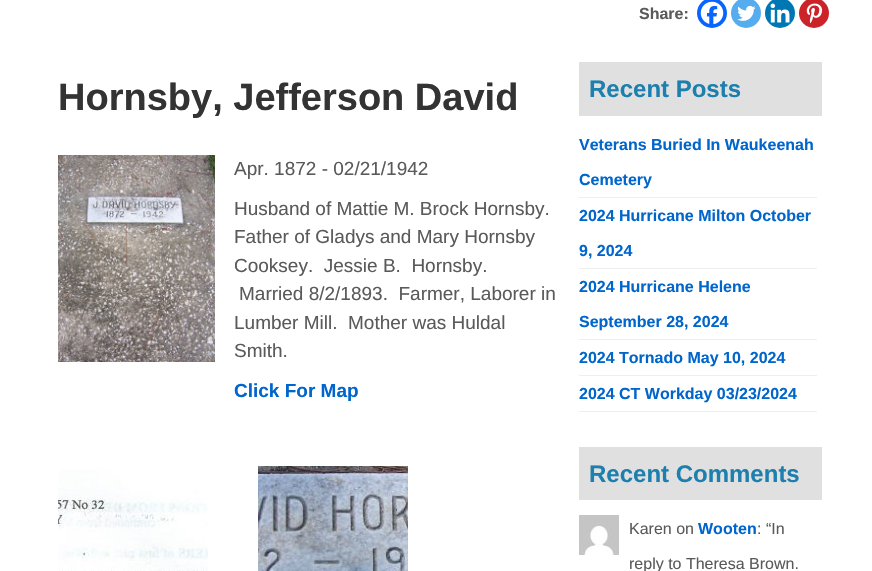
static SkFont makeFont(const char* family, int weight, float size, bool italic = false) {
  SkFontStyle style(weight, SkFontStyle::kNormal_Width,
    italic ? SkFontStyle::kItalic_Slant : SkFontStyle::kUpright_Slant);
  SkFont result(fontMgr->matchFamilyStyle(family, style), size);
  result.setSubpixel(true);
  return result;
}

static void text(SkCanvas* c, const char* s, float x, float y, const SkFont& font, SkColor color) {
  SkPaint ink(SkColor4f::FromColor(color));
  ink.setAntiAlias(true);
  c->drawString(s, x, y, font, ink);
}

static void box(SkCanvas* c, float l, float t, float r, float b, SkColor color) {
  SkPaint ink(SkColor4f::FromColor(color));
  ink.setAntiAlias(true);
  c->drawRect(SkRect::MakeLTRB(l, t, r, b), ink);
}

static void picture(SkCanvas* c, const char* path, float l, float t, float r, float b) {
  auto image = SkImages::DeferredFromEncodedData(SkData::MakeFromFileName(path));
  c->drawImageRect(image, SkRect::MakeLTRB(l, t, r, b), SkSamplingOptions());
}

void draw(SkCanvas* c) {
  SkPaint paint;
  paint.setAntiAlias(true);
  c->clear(0xffffffff);
  SkFont face1 = makeFont("Liberation Sans", 700, 16);
  text(c, "Share:", 639, 19, face1, 0xff5a5a5a);
  paint.setColor(0xff0765fe);
  c->drawCircle(712, 13, 15, paint);
  picture(c, "img_01.png", 700, 1, 724, 25);
  paint.setColor(0xff55acee);
  c->drawCircle(746, 13, 15, paint);
  picture(c, "img_02.png", 737, 5, 756, 21);
  paint.setColor(0xff0077b5);
  c->drawCircle(780, 13, 15, paint);
  picture(c, "img_03.png", 770, 3, 790, 23);
  paint.setColor(0xffcc2329);
  c->drawCircle(814, 13, 15, paint);
  picture(c, "img_04.png", 806, 3, 823, 24);
  SkFont face2 = makeFont("Liberation Sans", 700, 38);
  text(c, "Hornsby, Jefferson David", 58, 110, face2, 0xff333333);
  picture(c, "img_05.png", 58, 155, 215, 362);
  SkFont face3 = makeFont("Liberation Sans", 400, 19);
  text(c, "Apr. 1872 - 02/21/1942", 234, 175, face3, 0xff5a5a5a);
  text(c, "Husband of Mattie M. Brock Hornsby.", 234, 215, face3, 0xff5a5a5a);
  text(c, "Father of Gladys and Mary Hornsby", 234, 243, face3, 0xff5a5a5a);
  text(c, "Cooksey.  Jessie B.  Hornsby.", 234, 272, face3, 0xff5a5a5a);
  text(c, "Married 8/2/1893.  Farmer, Laborer in", 239, 300, face3, 0xff5a5a5a);
  text(c, "Lumber Mill.  Mother was Huldal", 234, 329, face3, 0xff5a5a5a);
  text(c, "Smith.", 234, 357, face3, 0xff5a5a5a);
  SkFont face4 = makeFont("Liberation Sans", 700, 19);
  text(c, "Click For Map", 234, 397, face4, 0xff0066cc);
  picture(c, "img_06.png", 58, 469, 208, 571);
  picture(c, "img_07.png", 258, 466, 408, 571);
  box(c, 579, 62, 822, 116, 0xffe0e0e0);
  SkFont face5 = makeFont("Liberation Sans", 700, 24);
  text(c, "Recent Posts", 589, 97, face5, 0xff1c7fae);
  box(c, 579, 197, 817, 198, 0xffeeeeee);
  text(c, "Veterans Buried In Waukeenah", 579, 150, face1, 0xff0066cc);
  text(c, "Cemetery", 579, 185, face1, 0xff0066cc);
  box(c, 579, 268, 817, 269, 0xffeeeeee);
  text(c, "2024 Hurricane Milton October", 579, 221, face1, 0xff0066cc);
  text(c, "9, 2024", 579, 256, face1, 0xff0066cc);
  box(c, 579, 339, 817, 340, 0xffeeeeee);
  text(c, "2024 Hurricane Helene", 579, 292, face1, 0xff0066cc);
  text(c, "September 28, 2024", 579, 327, face1, 0xff0066cc);
  box(c, 579, 375, 817, 376, 0xffeeeeee);
  text(c, "2024 Tornado May 10, 2024", 579, 363, face1, 0xff0066cc);
  box(c, 579, 411, 817, 412, 0xffeeeeee);
  text(c, "2024 CT Workday 03/23/2024", 579, 399, face1, 0xff0066cc);
  box(c, 579, 447, 822, 500, 0xffe0e0e0);
  text(c, "Recent Comments", 589, 482, face5, 0xff1c7fae);
  picture(c, "img_08.png", 579, 515, 619, 555);
  SkFont face6 = makeFont("Liberation Sans", 400, 16);
  text(c, "Karen on", 629, 534, face6, 0xff5a5a5a);
  text(c, "Wooten", 698, 534, face1, 0xff0066cc);
  text(c, ": “In", 757, 534, face6, 0xff5a5a5a);
  text(c, "reply to Theresa Brown.", 629, 569, face6, 0xff5a5a5a);
}
